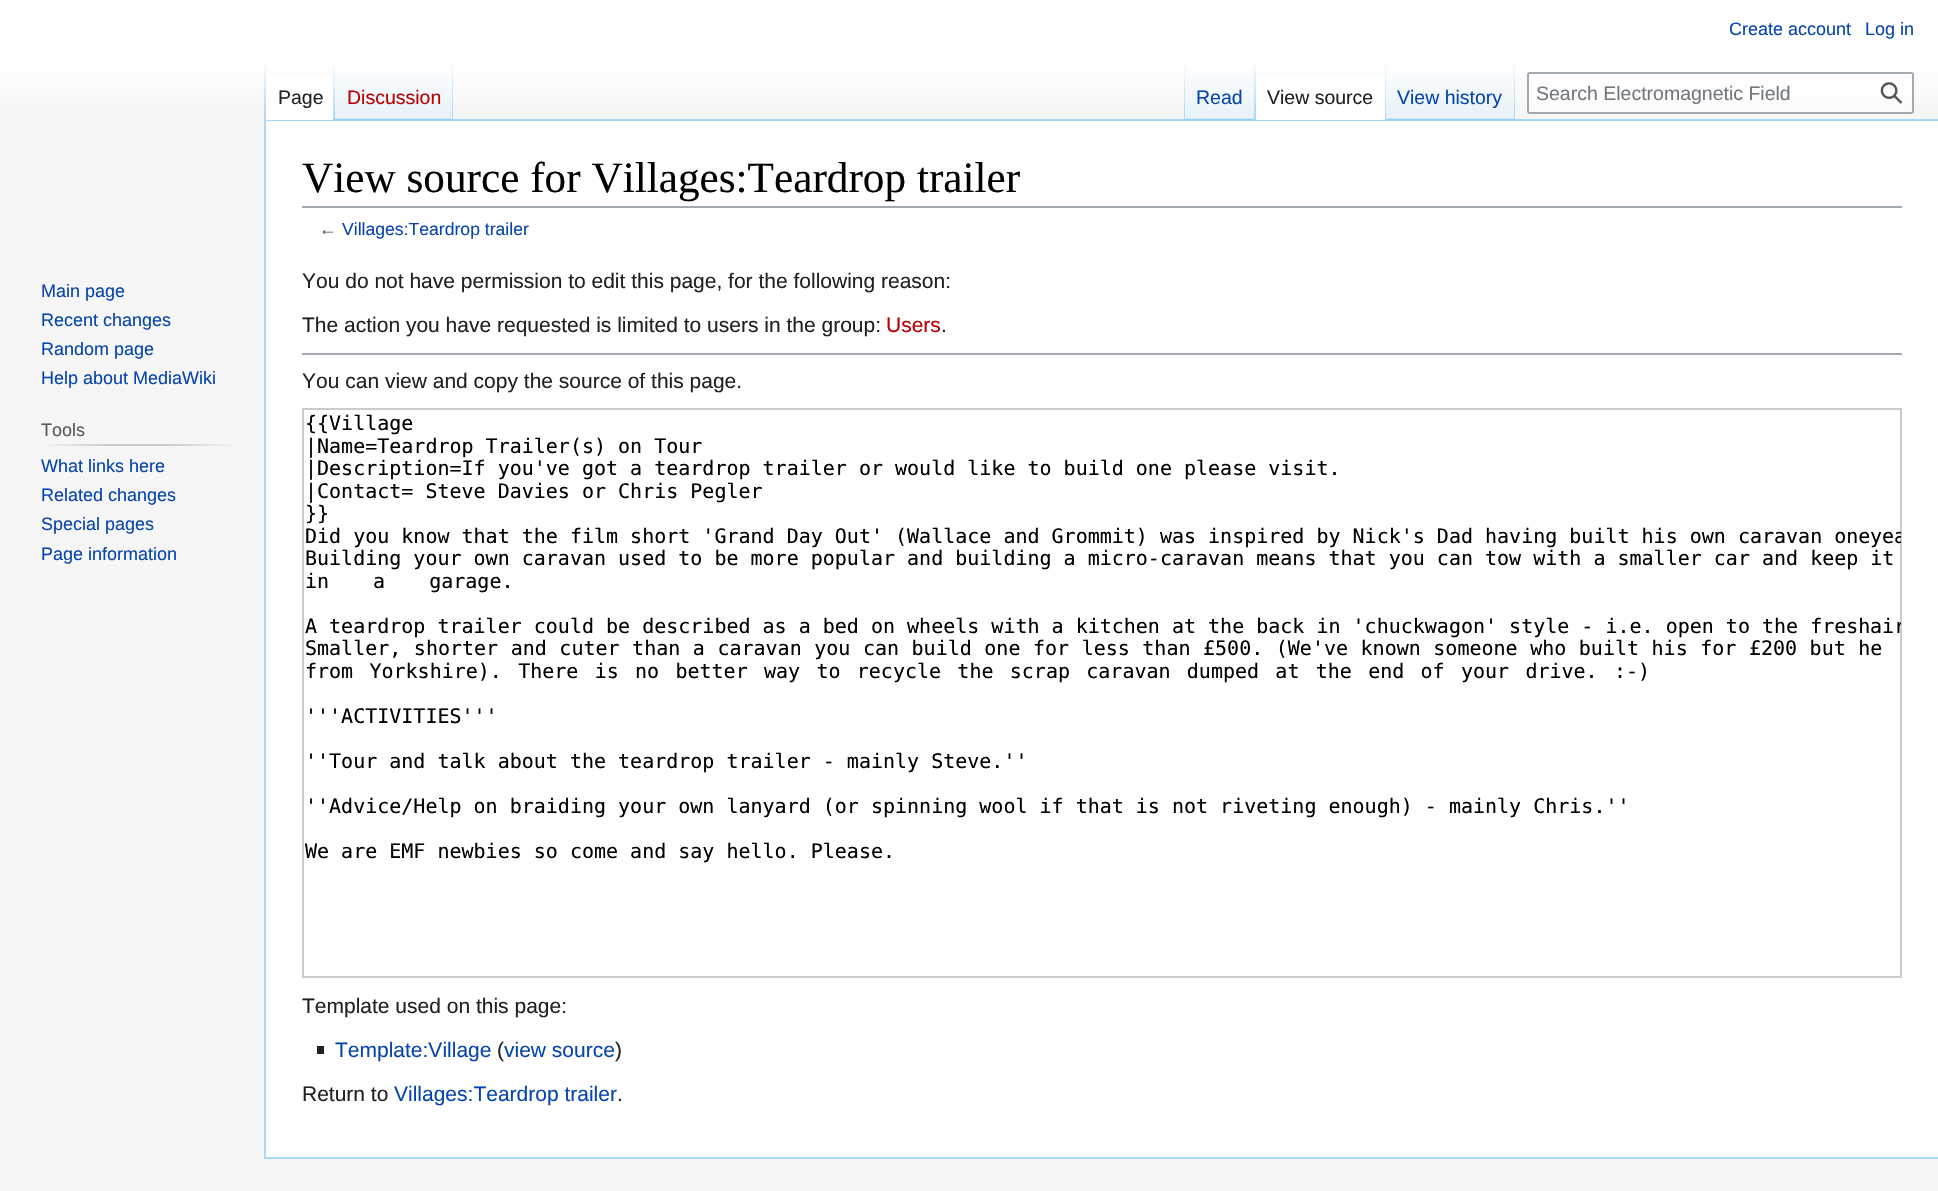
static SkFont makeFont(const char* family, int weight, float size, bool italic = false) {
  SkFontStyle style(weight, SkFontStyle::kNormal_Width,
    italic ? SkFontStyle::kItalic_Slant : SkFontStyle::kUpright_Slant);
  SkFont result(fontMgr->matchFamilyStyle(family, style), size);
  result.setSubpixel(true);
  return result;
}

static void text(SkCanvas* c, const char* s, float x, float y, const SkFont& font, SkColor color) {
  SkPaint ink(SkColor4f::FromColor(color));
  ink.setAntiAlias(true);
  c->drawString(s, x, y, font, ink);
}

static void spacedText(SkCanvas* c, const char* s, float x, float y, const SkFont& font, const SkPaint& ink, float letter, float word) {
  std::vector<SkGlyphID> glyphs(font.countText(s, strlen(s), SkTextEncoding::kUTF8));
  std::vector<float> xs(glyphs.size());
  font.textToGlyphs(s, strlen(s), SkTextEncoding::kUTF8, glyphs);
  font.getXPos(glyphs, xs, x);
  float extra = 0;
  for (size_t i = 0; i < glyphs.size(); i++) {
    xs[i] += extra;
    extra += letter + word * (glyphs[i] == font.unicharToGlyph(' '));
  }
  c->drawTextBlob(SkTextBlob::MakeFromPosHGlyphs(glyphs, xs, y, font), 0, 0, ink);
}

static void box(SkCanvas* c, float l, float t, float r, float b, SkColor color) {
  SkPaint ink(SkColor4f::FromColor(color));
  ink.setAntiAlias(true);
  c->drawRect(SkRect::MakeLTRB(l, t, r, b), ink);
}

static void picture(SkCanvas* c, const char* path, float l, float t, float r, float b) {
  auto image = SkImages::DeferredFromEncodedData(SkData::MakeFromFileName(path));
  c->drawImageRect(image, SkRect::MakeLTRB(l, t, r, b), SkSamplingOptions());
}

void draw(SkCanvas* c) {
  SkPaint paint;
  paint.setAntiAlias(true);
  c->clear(0xfff6f6f6);
  {
    const SkColor colors[] = {0xffffffff, 0xfff6f6f6};
    const float stops[] = {0.5f, 1};
    const SkPoint ends[] = {{969, 0}, {969, 120}};
    paint.setShader(SkGradientShader::MakeLinear(ends, colors, stops, 2, SkTileMode::kClamp));
    paint.setAlpha(255);
  }
  c->drawRect(SkRect::MakeLTRB(0, 0, 1938, 103), paint);
  SkFont face1 = makeFont("Liberation Sans", 400, 18);
  text(c, "Create account", 1729, 35, face1, 0xff0645ad);
  text(c, "Log in", 1865, 35, face1, 0xff0645ad);
  box(c, 264, 119, 1938, 121, 0xffa7d7f9);
  box(c, 264, 1157, 1938, 1159, 0xffa7d7f9);
  box(c, 264, 119, 266, 1158, 0xffa7d7f9);
  {
    const SkColor colors[] = {0x00a7d7f9, 0xffa7d7f9};
    const float stops[] = {0, 1};
    const SkPoint ends[] = {{265, 60}, {265, 120}};
    paint.setShader(SkGradientShader::MakeLinear(ends, colors, stops, 2, SkTileMode::kClamp));
    paint.setAlpha(255);
  }
  c->drawRect(SkRect::MakeLTRB(264, 60, 266, 120), paint);
  box(c, 266, 77, 333, 120, 0xffffffff);
  {
    const SkColor colors[] = {0xffffffff, 0xffa7d7f9};
    const float stops[] = {0, 1};
    const SkPoint ends[] = {{334, 60}, {334, 120}};
    paint.setShader(SkGradientShader::MakeLinear(ends, colors, stops, 2, SkTileMode::kClamp));
    paint.setAlpha(255);
  }
  c->drawRect(SkRect::MakeLTRB(333, 60, 335, 120), paint);
  SkFont face2 = makeFont("Liberation Sans", 400, 19.5f);
  text(c, "Page", 278, 104, face2, 0xff202122);
  {
    const SkColor colors[] = {0xff77c1f6, 0xffe8f2f8, 0xffffffff};
    const float stops[] = {0, 0.03f, 1};
    const SkPoint ends[] = {{394, 120}, {394, 60}};
    paint.setShader(SkGradientShader::MakeLinear(ends, colors, stops, 3, SkTileMode::kClamp));
    paint.setAlpha(255);
  }
  c->drawRect(SkRect::MakeLTRB(335, 69, 453, 120), paint);
  {
    const SkColor colors[] = {0x00a7d7f9, 0xffa7d7f9};
    const float stops[] = {0, 1};
    const SkPoint ends[] = {{452, 60}, {452, 120}};
    paint.setShader(SkGradientShader::MakeLinear(ends, colors, stops, 2, SkTileMode::kClamp));
    paint.setAlpha(255);
  }
  c->drawRect(SkRect::MakeLTRB(452, 60, 453, 120), paint);
  text(c, "Discussion", 347, 104, face2, 0xffba0000);
  {
    const SkColor colors[] = {0x00a7d7f9, 0xffa7d7f9};
    const float stops[] = {0, 1};
    const SkPoint ends[] = {{1184, 60}, {1184, 120}};
    paint.setShader(SkGradientShader::MakeLinear(ends, colors, stops, 2, SkTileMode::kClamp));
    paint.setAlpha(255);
  }
  c->drawRect(SkRect::MakeLTRB(1184, 60, 1185, 120), paint);
  {
    const SkColor colors[] = {0xff77c1f6, 0xffe8f2f8, 0xffffffff};
    const float stops[] = {0, 0.03f, 1};
    const SkPoint ends[] = {{1220, 120}, {1220, 60}};
    paint.setShader(SkGradientShader::MakeLinear(ends, colors, stops, 3, SkTileMode::kClamp));
    paint.setAlpha(255);
  }
  c->drawRect(SkRect::MakeLTRB(1185, 69, 1256, 120), paint);
  {
    const SkColor colors[] = {0x00a7d7f9, 0xffa7d7f9};
    const float stops[] = {0, 1};
    const SkPoint ends[] = {{1255, 60}, {1255, 120}};
    paint.setShader(SkGradientShader::MakeLinear(ends, colors, stops, 2, SkTileMode::kClamp));
    paint.setAlpha(255);
  }
  c->drawRect(SkRect::MakeLTRB(1254, 60, 1256, 120), paint);
  text(c, "Read", 1196, 104, face2, 0xff0645ad);
  box(c, 1256, 77, 1385, 120, 0xffffffff);
  {
    const SkColor colors[] = {0xffffffff, 0xffa7d7f9};
    const float stops[] = {0, 1};
    const SkPoint ends[] = {{1385, 60}, {1385, 120}};
    paint.setShader(SkGradientShader::MakeLinear(ends, colors, stops, 2, SkTileMode::kClamp));
    paint.setAlpha(255);
  }
  c->drawRect(SkRect::MakeLTRB(1385, 60, 1386, 120), paint);
  text(c, "View source", 1267, 104, face2, 0xff202122);
  {
    const SkColor colors[] = {0xff77c1f6, 0xffe8f2f8, 0xffffffff};
    const float stops[] = {0, 0.03f, 1};
    const SkPoint ends[] = {{1451, 120}, {1451, 60}};
    paint.setShader(SkGradientShader::MakeLinear(ends, colors, stops, 3, SkTileMode::kClamp));
    paint.setAlpha(255);
  }
  c->drawRect(SkRect::MakeLTRB(1386, 69, 1515, 120), paint);
  {
    const SkColor colors[] = {0x00a7d7f9, 0xffa7d7f9};
    const float stops[] = {0, 1};
    const SkPoint ends[] = {{1514, 60}, {1514, 120}};
    paint.setShader(SkGradientShader::MakeLinear(ends, colors, stops, 2, SkTileMode::kClamp));
    paint.setAlpha(255);
  }
  c->drawRect(SkRect::MakeLTRB(1514, 60, 1515, 120), paint);
  text(c, "View history", 1397, 104, face2, 0xff0645ad);
  paint.setShader(nullptr);
  paint.setColor(0x80ffffff);
  c->drawRoundRect(SkRect::MakeLTRB(1528, 73, 1913, 113), 2, 2, paint);
  paint.setStyle(SkPaint::kStroke_Style);
  paint.setStrokeWidth(2);
  paint.setColor(0xffa2a9b1);
  c->drawRoundRect(SkRect::MakeLTRB(1528, 73, 1913, 113), 2, 2, paint);
  text(c, "Search Electromagnetic Field", 1536, 100, face2, 0xff72777d);
  picture(c, "img_01.png", 1880, 82, 1903, 104);
  text(c, "Main page", 41, 297, face1, 0xff0645ad);
  text(c, "Recent changes", 41, 326, face1, 0xff0645ad);
  text(c, "Random page", 41, 355, face1, 0xff0645ad);
  text(c, "Help about MediaWiki", 41, 384, face1, 0xff0645ad);
  paint.setStyle(SkPaint::kFill_Style);
  {
    const SkColor colors[] = {0xfff6f6f6, 0xffc8ccd1, 0xffc8ccd1, 0xfff6f6f6};
    const float stops[] = {0, 0.33f, 0.66f, 1};
    const SkPoint ends[] = {{41, 445}, {237, 445}};
    paint.setShader(SkGradientShader::MakeLinear(ends, colors, stops, 4, SkTileMode::kClamp));
    paint.setAlpha(255);
  }
  c->drawRect(SkRect::MakeLTRB(41, 444, 237, 446), paint);
  text(c, "Tools", 41, 436, face1, 0xff54595d);
  text(c, "What links here", 41, 472, face1, 0xff0645ad);
  text(c, "Related changes", 41, 501, face1, 0xff0645ad);
  text(c, "Special pages", 41, 530, face1, 0xff0645ad);
  text(c, "Page information", 41, 560, face1, 0xff0645ad);
  box(c, 266, 121, 1938, 1157, 0xffffffff);
  box(c, 302, 206, 1902, 208, 0xffa2a9b1);
  SkFont face3 = makeFont("Liberation Serif", 400, 43.25f);
  text(c, "View source for Villages:Teardrop trailer", 302, 192, face3, 0xff000000);
  SkFont face4 = makeFont("Liberation Sans", 400, 17.6f);
  text(c, "←", 319, 235, face4, 0xff54595d);
  text(c, "Villages:Teardrop trailer", 342, 235, face4, 0xff0645ad);
  SkFont face5 = makeFont("Liberation Sans", 400, 21);
  text(c, "You do not have permission to edit this page, for the following reason:", 302, 288, face5, 0xff202122);
  text(c, "The action you have requested is limited to users in the group:", 302, 332, face5, 0xff202122);
  text(c, "Users", 886, 332, face5, 0xffba0000);
  text(c, ".", 941, 332, face5, 0xff202122);
  box(c, 302, 353, 1902, 355, 0xffa2a9b1);
  text(c, "You can view and copy the source of this page.", 302, 388, face5, 0xff202122);
  paint.setStyle(SkPaint::kStroke_Style);
  paint.setShader(nullptr);
  paint.setColor(0xffc8ccd1);
  c->drawRect(SkRect::MakeLTRB(303, 409, 1901, 977), paint);
  SkFont face6 = makeFont("DejaVu Sans Mono", 400, 20);
  text(c, "{{Village", 305, 430, face6, 0xff000000);
  text(c, "|Name=Teardrop Trailer(s) on Tour", 305, 453, face6, 0xff000000);
  text(c, "|Description=If you've got a teardrop trailer or would like to build one please visit.", 305, 475, face6, 0xff000000);
  text(c, "|Contact= Steve Davies or Chris Pegler", 305, 498, face6, 0xff000000);
  text(c, "}}", 305, 520, face6, 0xff000000);
  text(c, "Did you know that the film short 'Grand Day Out' (Wallace and Grommit) was inspired by Nick's Dad having built his own caravan one", 305, 543, face6, 0xff000000);
  c->save();
  c->clipRect(SkRect::MakeLTRB(303, 410, 1901, 977));
  text(c, "yea", 1870, 543, face6, 0xff000000);
  c->restore();
  text(c, "Building your own caravan used to be more popular and building a micro-caravan means that you can tow with a smaller car and keep it", 305, 565, face6, 0xff000000);
  paint.setStyle(SkPaint::kFill_Style);
  paint.setColor(0xff000000);
  spacedText(c, "in a garage.", 305, 588, face6, paint, 0, 32);
  text(c, "A teardrop trailer could be described as a bed on wheels with a kitchen at the back in 'chuckwagon' style - i.e. open to the fresh", 305, 633, face6, 0xff000000);
  c->save();
  c->clipRect(SkRect::MakeLTRB(303, 410, 1901, 977));
  text(c, "air", 1870, 633, face6, 0xff000000);
  c->restore();
  spacedText(c, "Smaller, shorter and cuter than a caravan you can build one for less than £500. (We've known someone who built his for £200 but he", 305, 655, face6, paint, 0, 0.5f);
  spacedText(c, "from Yorkshire). There is no better way to recycle the scrap caravan dumped at the end of your drive. :-)", 305, 678, face6, paint, 0, 4.25f);
  text(c, "'''ACTIVITIES'''", 305, 723, face6, 0xff000000);
  text(c, "''Tour and talk about the teardrop trailer - mainly Steve.''", 305, 768, face6, 0xff000000);
  text(c, "''Advice/Help on braiding your own lanyard (or spinning wool if that is not riveting enough) - mainly Chris.''", 305, 813, face6, 0xff000000);
  text(c, "We are EMF newbies so come and say hello. Please.", 305, 858, face6, 0xff000000);
  text(c, "Template used on this page:", 302, 1013, face5, 0xff202122);
  box(c, 317, 1046, 324, 1054, 0xff202122);
  text(c, "Template:Village", 335, 1057, face5, 0xff0645ad);
  text(c, "(", 497, 1057, face5, 0xff202122);
  text(c, "view source", 504, 1057, face5, 0xff0645ad);
  text(c, ")", 615, 1057, face5, 0xff202122);
  text(c, "Return to", 302, 1101, face5, 0xff202122);
  text(c, "Villages:Teardrop trailer", 394, 1101, face5, 0xff0645ad);
  text(c, ".", 617, 1101, face5, 0xff202122);
}
